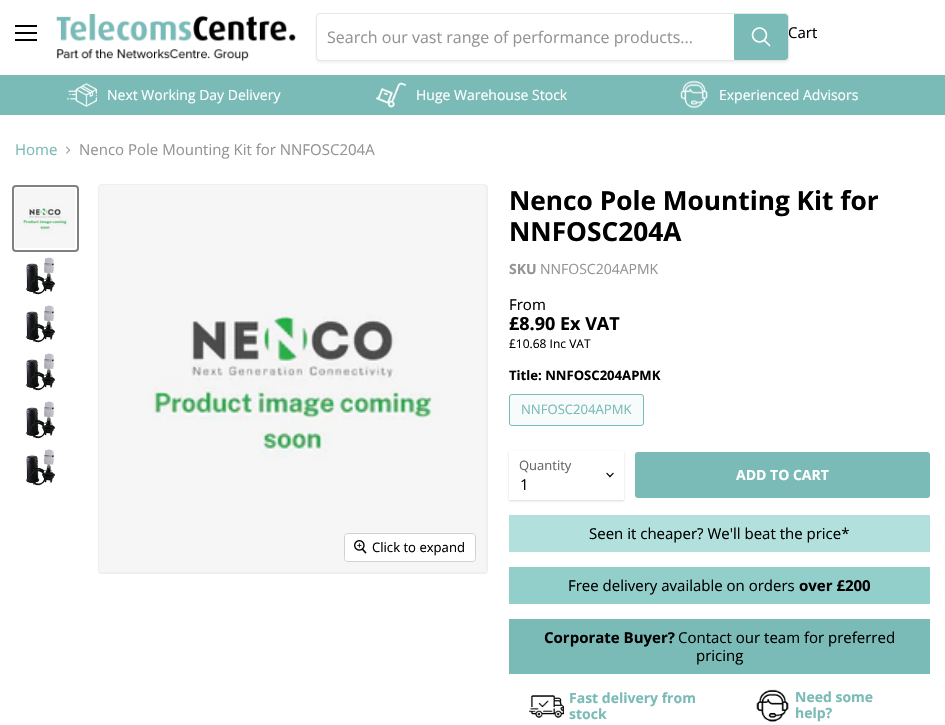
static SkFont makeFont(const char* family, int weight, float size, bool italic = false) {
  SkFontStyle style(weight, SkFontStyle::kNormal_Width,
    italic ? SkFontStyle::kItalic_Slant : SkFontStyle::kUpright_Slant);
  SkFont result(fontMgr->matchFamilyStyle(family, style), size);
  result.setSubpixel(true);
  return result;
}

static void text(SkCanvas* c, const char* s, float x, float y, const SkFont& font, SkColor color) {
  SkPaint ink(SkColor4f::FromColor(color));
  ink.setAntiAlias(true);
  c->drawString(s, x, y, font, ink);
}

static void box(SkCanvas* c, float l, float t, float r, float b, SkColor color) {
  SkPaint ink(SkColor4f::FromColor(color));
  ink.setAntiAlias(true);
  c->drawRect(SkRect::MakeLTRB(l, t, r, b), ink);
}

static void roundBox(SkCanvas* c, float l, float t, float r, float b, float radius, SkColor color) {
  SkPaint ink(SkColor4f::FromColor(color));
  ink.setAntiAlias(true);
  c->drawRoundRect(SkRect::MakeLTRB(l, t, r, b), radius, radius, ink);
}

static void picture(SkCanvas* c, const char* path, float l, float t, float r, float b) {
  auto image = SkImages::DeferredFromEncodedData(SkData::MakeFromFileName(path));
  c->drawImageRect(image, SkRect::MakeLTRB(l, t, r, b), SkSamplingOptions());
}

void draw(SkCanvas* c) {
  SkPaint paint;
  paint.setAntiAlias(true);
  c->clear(0xffffffff);
  box(c, 15, 25, 37, 27, 0xff000000);
  box(c, 15, 32, 37, 34, 0xff000000);
  box(c, 15, 39, 37, 41, 0xff000000);
  picture(c, "img_01.png", 56, 13, 296, 62);
  c->save();
  c->clipPath(SkPathBuilder(SkPathFillType::kEvenOdd).moveTo(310, 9).lineTo(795, 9).lineTo(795, 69).lineTo(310, 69).close().moveTo(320, 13).lineTo(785, 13).cubicTo(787, 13, 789, 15, 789, 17).lineTo(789, 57).cubicTo(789, 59, 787, 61, 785, 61).lineTo(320, 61).cubicTo(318, 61, 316, 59, 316, 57).lineTo(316, 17).cubicTo(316, 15, 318, 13, 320, 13).close().detach(), true);
  paint.setColor(0x1c808080);
  paint.setMaskFilter(SkMaskFilter::MakeBlur(kNormal_SkBlurStyle, 1.5f));
  c->drawRoundRect(SkRect::MakeLTRB(316, 15, 789, 63), 4, 4, paint);
  paint.setMaskFilter(nullptr);
  c->restore();
  SkFont face1 = makeFont("Open Sans", 400, 15);
  text(c, "Cart", 788, 38, face1, 0xff000000);
  paint.setStyle(SkPaint::kStroke_Style);
  paint.setStrokeWidth(1);
  paint.setColor(0x33808080);
  c->drawRoundRect(SkRect::MakeLTRB(316.5f, 13.5f, 788.5f, 60.5f), 3.5f, 3.5f, paint);
  SkFont face2 = makeFont("Open Sans", 400, 16);
  text(c, "Search our vast range of performance products...", 327, 43, face2, 0xff949494);
  paint.setStyle(SkPaint::kFill_Style);
  paint.setColor(0xff7abbb7);
  c->drawPath(SkPathBuilder().moveTo(734.5f, 14.5f).lineTo(785, 14.5f).cubicTo(786.5f, 14.5f, 787.5f, 15.5f, 787.5f, 17).lineTo(787.5f, 57).cubicTo(787.5f, 58.5f, 786.5f, 59.5f, 785, 59.5f).lineTo(734.5f, 59.5f).close().detach(), paint);
  paint.setStyle(SkPaint::kStroke_Style);
  c->drawPath(SkPathBuilder().moveTo(734.5f, 14.5f).lineTo(785, 14.5f).cubicTo(786.5f, 14.5f, 787.5f, 15.5f, 787.5f, 17).lineTo(787.5f, 57).cubicTo(787.5f, 58.5f, 786.5f, 59.5f, 785, 59.5f).lineTo(734.5f, 59.5f).close().detach(), paint);
  paint.setStrokeWidth(1.7f);
  paint.setStrokeCap(SkPaint::kRound_Cap);
  paint.setColor(0xffffffff);
  c->drawPath(SkPathBuilder().moveTo(769.5f, 45.5f).lineTo(764.5f, 40.5f).detach(), paint);
  paint.setStrokeCap(SkPaint::kButt_Cap);
  c->drawCircle(759.5f, 35, 7, paint);
  box(c, 0, 75, 945, 115, 0xff7abbb7);
  picture(c, "img_02.png", 67, 83, 97, 107);
  SkFont face3 = makeFont("Open Sans", 400, 14);
  text(c, "Next Working Day Delivery", 107, 100, face3, 0xffffffff);
  picture(c, "img_03.png", 376, 82, 406, 108);
  text(c, "Huge Warehouse Stock", 416, 100, face3, 0xffffffff);
  picture(c, "img_04.png", 680, 80, 708, 109);
  text(c, "Experienced Advisors", 719, 100, face3, 0xffffffff);
  text(c, "Home", 15, 155, face1, 0xff7abbb7);
  picture(c, "img_05.png", 66, 146, 71, 154);
  text(c, "Nenco Pole Mounting Kit for NNFOSC204A", 79, 155, face1, 0xff949494);
  paint.setStrokeWidth(2);
  paint.setColor(0xff818181);
  c->drawRoundRect(SkRect::MakeLTRB(13, 186, 78, 251), 3, 3, paint);
  picture(c, "img_06.png", 15, 188, 75, 248);
  picture(c, "img_07.png", 26, 257, 56, 295);
  picture(c, "img_08.png", 26, 305, 56, 343);
  picture(c, "img_09.png", 26, 353, 56, 391);
  picture(c, "img_09.png", 26, 401, 56, 439);
  picture(c, "img_10.png", 26, 449, 55, 486);
  paint.setColor(0xffefefef);
  c->drawRoundRect(SkRect::MakeLTRB(99, 185, 487, 573), 3, 3, paint);
  picture(c, "img_11.png", 99, 185, 486, 572);
  paint.setStrokeWidth(1);
  paint.setColor(0xffd1d1d1);
  c->drawRoundRect(SkRect::MakeLTRB(344.5f, 533.5f, 475.5f, 561.5f), 3.5f, 3.5f, paint);
  roundBox(c, 345, 534, 475, 561, 3, 0xe6ffffff);
  picture(c, "img_12.png", 354, 540, 367, 554);
  SkFont face4 = makeFont("Open Sans", 400, 13.1f);
  text(c, "Click to expand", 372, 552, face4, 0xff000000);
  SkFont face5 = makeFont("Open Sans", 700, 26.25f);
  text(c, "Nenco Pole Mounting Kit for", 509, 210, face5, 0xff000000);
  text(c, "NNFOSC204A", 509, 241, face5, 0xff000000);
  SkFont face6 = makeFont("Open Sans", 700, 14);
  text(c, "SKU", 509, 274, face6, 0xff949494);
  text(c, "NNFOSC204APMK", 540, 274, face3, 0xff949494);
  text(c, "From", 509, 310, face1, 0xff000000);
  SkFont face7 = makeFont("Open Sans", 700, 18);
  text(c, "£8.90 Ex VAT", 509, 330, face7, 0xff000000);
  SkFont face8 = makeFont("Open Sans", 400, 12);
  text(c, "£10.68 Inc VAT", 509, 348, face8, 0xff000000);
  SkFont face9 = makeFont("Open Sans", 700, 13.1f);
  text(c, "Title: NNFOSC204APMK", 509, 380, face9, 0xff000000);
  paint.setStyle(SkPaint::kFill_Style);
  paint.setColor(0xfff7fbfb);
  c->drawRoundRect(SkRect::MakeLTRB(509.5f, 394.5f, 643.5f, 425.5f), 2.5f, 2.5f, paint);
  paint.setStyle(SkPaint::kStroke_Style);
  paint.setColor(0xff7abbb7);
  c->drawRoundRect(SkRect::MakeLTRB(509.5f, 394.5f, 643.5f, 425.5f), 2.5f, 2.5f, paint);
  text(c, "NNFOSC204APMK", 521, 414, face4, 0xff7abbb7);
  c->save();
  c->clipPath(SkPathBuilder(SkPathFillType::kEvenOdd).moveTo(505, 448).lineTo(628, 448).lineTo(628, 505).lineTo(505, 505).close().moveTo(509, 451).lineTo(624, 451).lineTo(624, 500).lineTo(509, 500).close().detach(), true);
  paint.setStyle(SkPaint::kFill_Style);
  paint.setColor(0x26000000);
  paint.setMaskFilter(SkMaskFilter::MakeBlur(kNormal_SkBlurStyle, 1));
  c->drawRect(SkRect::MakeLTRB(509, 452, 624, 501), paint);
  paint.setMaskFilter(nullptr);
  c->restore();
  SkFont face10 = makeFont("Open Sans", 400, 13);
  text(c, "Quantity", 519, 470, face10, 0xff666666);
  picture(c, "img_13.png", 606, 472, 614, 478);
  text(c, "1", 520, 490, face1, 0xff000000);
  roundBox(c, 635, 452, 930, 498, 3, 0xff7abbb7);
  text(c, "ADD TO CART", 736, 480, face6, 0xffffffff);
  box(c, 509, 515, 930, 552, 0xffb1e0dd);
  text(c, "Seen it cheaper? We'll beat the price*", 589, 539, face1, 0xff000000);
  box(c, 509, 567, 930, 604, 0xff92ceca);
  text(c, "Free delivery available on orders", 568, 591, face1, 0xff000000);
  SkFont face11 = makeFont("Open Sans", 700, 15);
  text(c, "over £200", 799, 591, face11, 0xff000000);
  box(c, 509, 619, 930, 674, 0xff7abbb7);
  text(c, "Corporate Buyer?", 544, 643, face11, 0xff000000);
  text(c, "Contact our team for preferred", 678, 643, face1, 0xff000000);
  text(c, "pricing", 696, 661, face1, 0xff000000);
  picture(c, "img_14.png", 529, 695, 564, 718);
  text(c, "Fast delivery from", 569, 703, face6, 0xff7abbb7);
  text(c, "stock", 569, 719, face6, 0xff7abbb7);
  picture(c, "img_15.png", 756, 689, 789, 722);
  text(c, "Need some", 795, 702, face6, 0xff7abbb7);
  text(c, "help?", 795, 718, face6, 0xff7abbb7);
}
